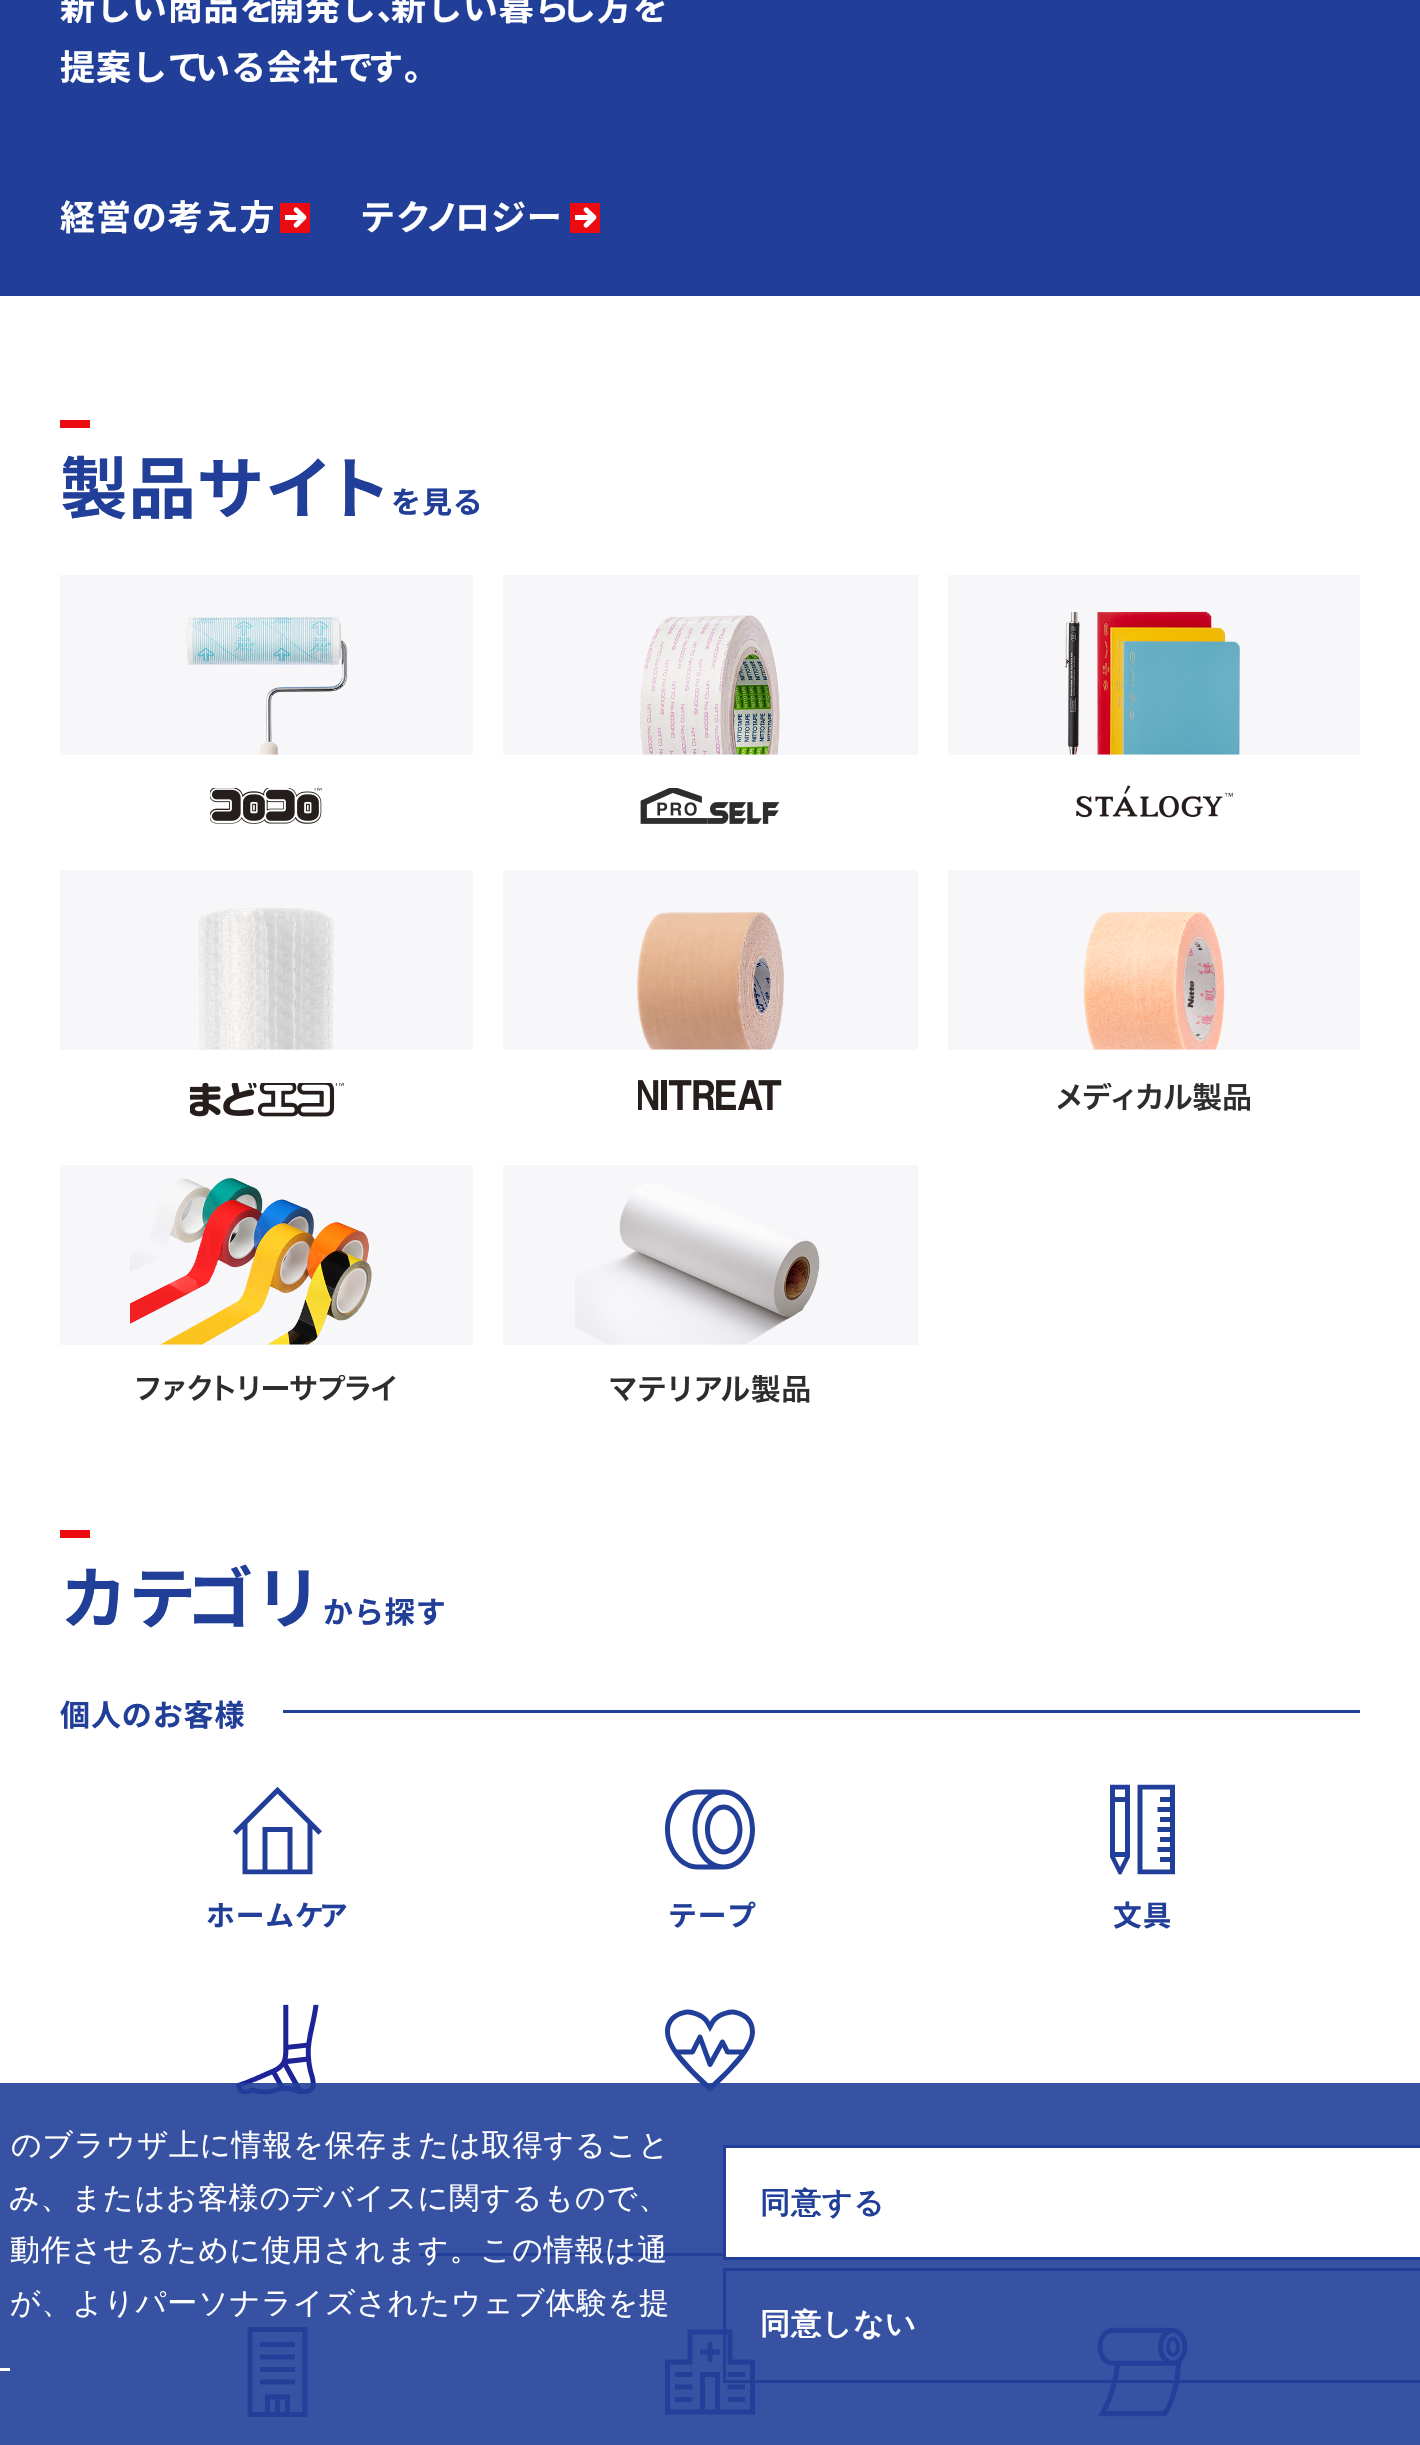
static SkFont makeFont(const char* family, int weight, float size, bool italic = false) {
  SkFontStyle style(weight, SkFontStyle::kNormal_Width,
    italic ? SkFontStyle::kItalic_Slant : SkFontStyle::kUpright_Slant);
  SkFont result(fontMgr->matchFamilyStyle(family, style), size);
  result.setSubpixel(true);
  return result;
}

static void spacedText(SkCanvas* c, const char* s, float x, float y, const SkFont& font, const SkPaint& ink, float letter, float word) {
  std::vector<SkGlyphID> glyphs(font.countText(s, strlen(s), SkTextEncoding::kUTF8));
  std::vector<float> xs(glyphs.size());
  font.textToGlyphs(s, strlen(s), SkTextEncoding::kUTF8, glyphs);
  font.getXPos(glyphs, xs, x);
  float extra = 0;
  for (size_t i = 0; i < glyphs.size(); i++) {
    xs[i] += extra;
    extra += letter + word * (glyphs[i] == font.unicharToGlyph(' '));
  }
  c->drawTextBlob(SkTextBlob::MakeFromPosHGlyphs(glyphs, xs, y, font), 0, 0, ink);
}

static void box(SkCanvas* c, float l, float t, float r, float b, SkColor color) {
  SkPaint ink(SkColor4f::FromColor(color));
  ink.setAntiAlias(true);
  c->drawRect(SkRect::MakeLTRB(l, t, r, b), ink);
}

static void picture(SkCanvas* c, const char* path, float l, float t, float r, float b) {
  auto image = SkImages::DeferredFromEncodedData(SkData::MakeFromFileName(path));
  c->drawImageRect(image, SkRect::MakeLTRB(l, t, r, b), SkSamplingOptions());
}

void draw(SkCanvas* c) {
  SkPaint paint;
  paint.setAntiAlias(true);
  c->clear(0xffffffff);
  box(c, 0, 0, 1420, 296, 0xff213f99);
  SkFont face1 = makeFont("Noto Sans JP", 700, 35);
  paint.setColor(0xffffffff);
  spacedText(c, "新しい商品を", 60, 20, face1, paint, 0.9f, 0);
  spacedText(c, "開発し、", 269, 20, face1, paint, 0.9f, 0);
  spacedText(c, "新しい暮ら", 391, 20, face1, paint, 0.9f, 0);
  spacedText(c, "し方を", 561, 20, face1, paint, 0.9f, 0);
  spacedText(c, "提案して", 60, 80, face1, paint, 0.9f, 0);
  spacedText(c, "いる会社で", 195, 80, face1, paint, 0.9f, 0);
  spacedText(c, "す。", 368, 80, face1, paint, 0.9f, 0);
  spacedText(c, "経営の考え方", 60, 230, face1, paint, 0.9f, 0);
  picture(c, "img_01.png", 280, 203, 310, 233);
  spacedText(c, "テク", 360, 230, face1, paint, 0.9f, 0);
  spacedText(c, "ノ", 425, 230, face1, paint, 0.9f, 0);
  spacedText(c, "ロジー", 455, 230, face1, paint, 0.9f, 0);
  picture(c, "img_01.png", 570, 203, 600, 233);
  box(c, 60, 420, 90, 428, 0xffed0b12);
  SkFont face2 = makeFont("Noto Sans JP", 700, 67.5f);
  paint.setColor(0xff213f99);
  spacedText(c, "製品サイ", 60, 513, face2, paint, 0.9f, 0);
  spacedText(c, "ト", 324, 513, face2, paint, 0.9f, 0);
  SkFont face3 = makeFont("Noto Sans JP", 700, 30);
  spacedText(c, "を見る", 391, 513, face3, paint, 0.9f, 0);
  box(c, 60, 575, 473, 755, 0xfff7f7fa);
  picture(c, "img_02.png", 185, 617, 348, 755);
  picture(c, "img_03.png", 210, 788, 322, 824);
  box(c, 503, 575, 918, 755, 0xfff7f7fa);
  picture(c, "img_04.png", 640, 615, 780, 755);
  picture(c, "img_05.png", 640, 788, 780, 824);
  box(c, 948, 575, 1360, 755, 0xfff7f7fa);
  picture(c, "img_06.png", 1065, 611, 1240, 755);
  picture(c, "img_07.png", 1076, 785, 1233, 818);
  box(c, 60, 870, 473, 1050, 0xfff7f7fa);
  picture(c, "img_08.png", 198, 907, 334, 1050);
  picture(c, "img_09.png", 190, 1083, 344, 1117);
  box(c, 503, 870, 918, 1050, 0xfff7f7fa);
  picture(c, "img_10.png", 636, 911, 784, 1050);
  picture(c, "img_11.png", 638, 1080, 782, 1110);
  box(c, 948, 870, 1360, 1050, 0xfff7f7fa);
  picture(c, "img_12.png", 1083, 911, 1225, 1050);
  picture(c, "img_13.png", 1058, 1083, 1250, 1111);
  box(c, 60, 1165, 473, 1345, 0xfff7f7fa);
  picture(c, "img_14.png", 130, 1178, 372, 1345);
  picture(c, "img_15.png", 137, 1375, 396, 1401);
  box(c, 503, 1165, 918, 1345, 0xfff7f7fa);
  picture(c, "img_16.png", 575, 1184, 820, 1345);
  picture(c, "img_17.png", 610, 1375, 810, 1403);
  box(c, 60, 1530, 90, 1538, 0xffed0b12);
  spacedText(c, "カテ", 60, 1623, face2, paint, 0.9f, 0);
  spacedText(c, "ゴリ", 186, 1623, face2, paint, 0.9f, 0);
  spacedText(c, "から探す", 323, 1623, face3, paint, 0.9f, 0);
  box(c, 283, 1710, 1360, 1713, 0xff213f99);
  spacedText(c, "個人のお客様", 60, 1726, face3, paint, 0.9f, 0);
  picture(c, "img_18.png", 233, 1786, 322, 1875);
  SkFont face4 = makeFont("Noto Sans JP", 700, 28.75f);
  spacedText(c, "ホームケ", 206, 1926, face4, paint, 0.9f, 0);
  spacedText(c, "ア", 319, 1926, face4, paint, 0.9f, 0);
  picture(c, "img_19.png", 665, 1789, 755, 1870);
  spacedText(c, "テープ", 668, 1926, face4, paint, 0.9f, 0);
  picture(c, "img_20.png", 1110, 1784, 1175, 1875);
  spacedText(c, "文具", 1113, 1926, face4, paint, 0.9f, 0);
  picture(c, "img_21.png", 236, 2004, 319, 2095);
  picture(c, "img_22.png", 665, 2009, 755, 2092);
  box(c, 420, 2253, 723, 2256, 0xff213f99);
  picture(c, "img_23.png", 247, 2327, 308, 2417);
  picture(c, "img_24.png", 665, 2329, 755, 2415);
  picture(c, "img_25.png", 1097, 2327, 1188, 2417);
  box(c, 0, 2083, 1420, 2445, 0xe6213f99);
  SkFont face5 = makeFont("WenQuanYi Zen Hei", 500, 30);
  paint.setColor(0xffffffff);
  spacedText(c, "のブラウザ上に情報を保存または取得すること", 11, 2155, face5, paint, 0.9f, 0);
  spacedText(c, "み、またはお客様のデバイスに関するもので、", 9, 2208, face5, paint, 0.9f, 0);
  spacedText(c, "動作させるために使用されます。この情報は通", 10, 2260, face5, paint, 0.9f, 0);
  spacedText(c, "が、よりパーソナライズされたウェブ体験を提", 10, 2313, face5, paint, 0.9f, 0);
  box(c, 0, 2368, 10, 2371, 0xffffffff);
  c->drawRect(SkRect::MakeLTRB(724.5f, 2146.5f, 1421.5f, 2258.5f), paint);
  paint.setStyle(SkPaint::kStroke_Style);
  paint.setStrokeWidth(3);
  paint.setColor(0xff213f99);
  c->drawRect(SkRect::MakeLTRB(724.5f, 2146.5f, 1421.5f, 2258.5f), paint);
  SkFont face6 = makeFont("WenQuanYi Zen Hei", 700, 30);
  paint.setStyle(SkPaint::kFill_Style);
  spacedText(c, "同意する", 760, 2213, face6, paint, 0.9f, 0);
  paint.setStyle(SkPaint::kStroke_Style);
  c->drawRect(SkRect::MakeLTRB(724.5f, 2269.5f, 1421.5f, 2381.5f), paint);
  paint.setStyle(SkPaint::kFill_Style);
  paint.setColor(0xffffffff);
  spacedText(c, "同意しない", 760, 2334, face6, paint, 0.9f, 0);
}
